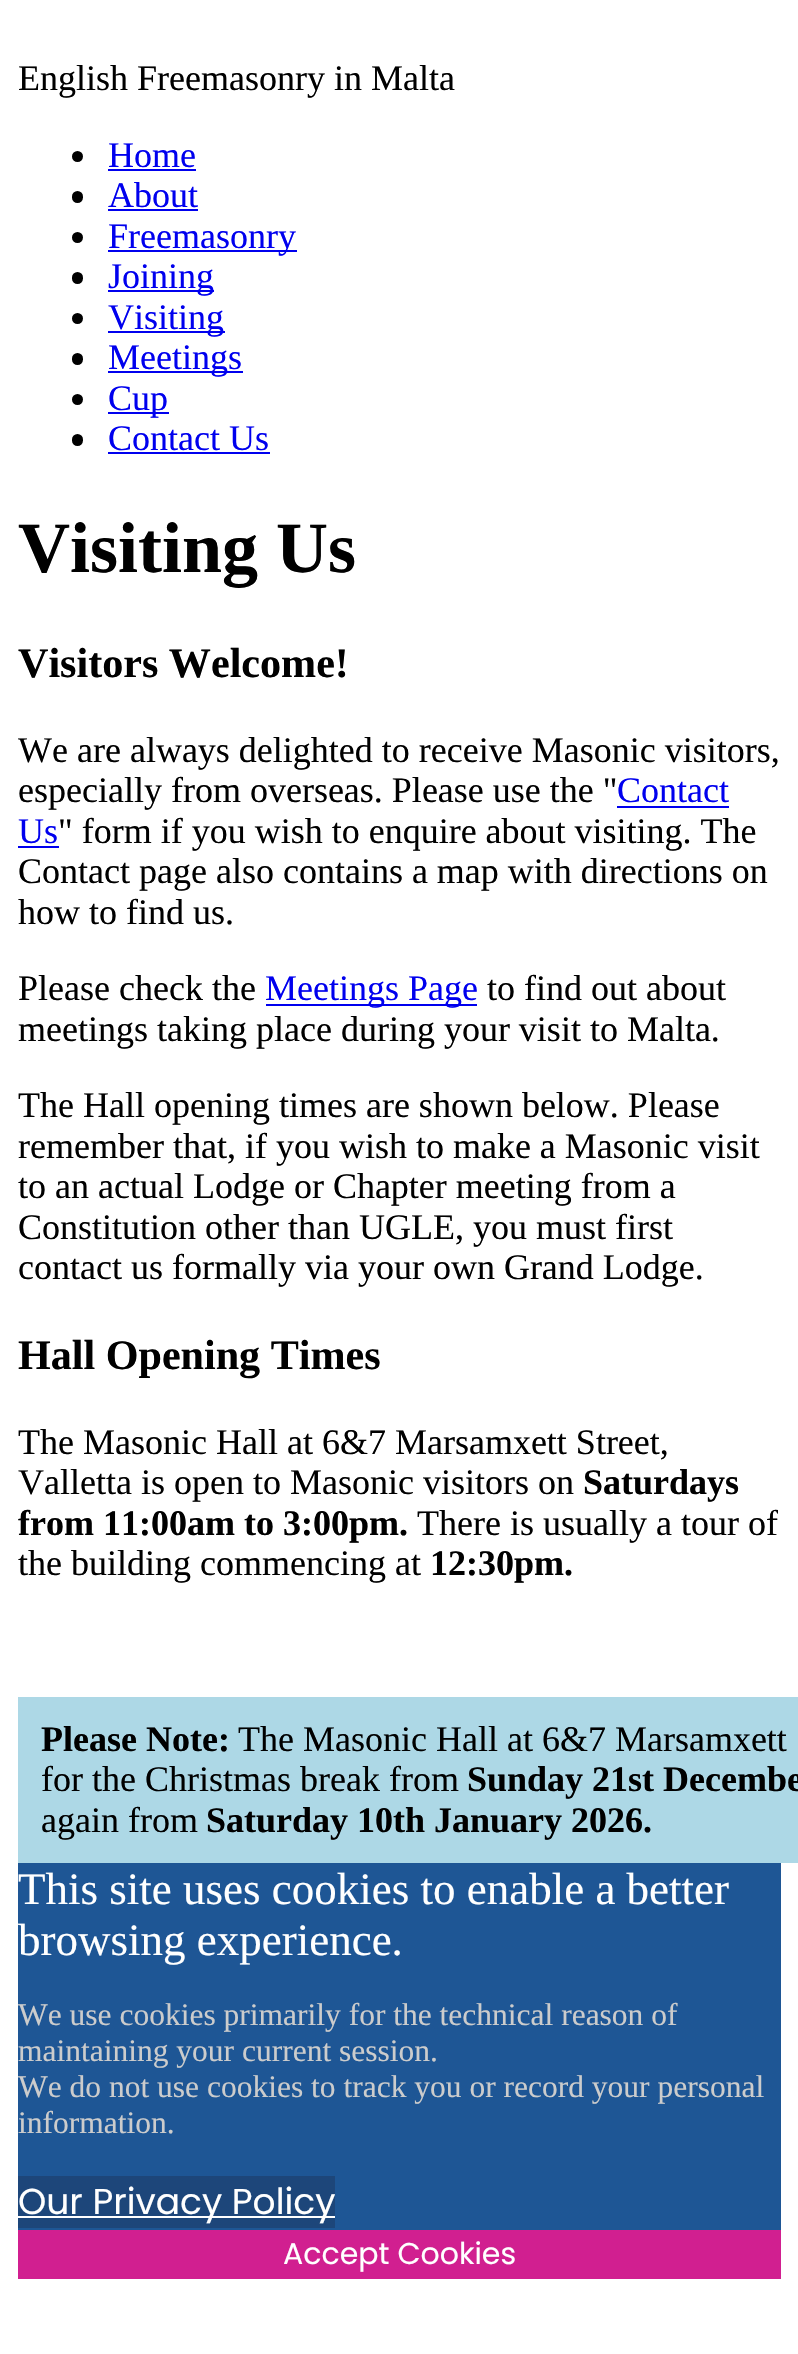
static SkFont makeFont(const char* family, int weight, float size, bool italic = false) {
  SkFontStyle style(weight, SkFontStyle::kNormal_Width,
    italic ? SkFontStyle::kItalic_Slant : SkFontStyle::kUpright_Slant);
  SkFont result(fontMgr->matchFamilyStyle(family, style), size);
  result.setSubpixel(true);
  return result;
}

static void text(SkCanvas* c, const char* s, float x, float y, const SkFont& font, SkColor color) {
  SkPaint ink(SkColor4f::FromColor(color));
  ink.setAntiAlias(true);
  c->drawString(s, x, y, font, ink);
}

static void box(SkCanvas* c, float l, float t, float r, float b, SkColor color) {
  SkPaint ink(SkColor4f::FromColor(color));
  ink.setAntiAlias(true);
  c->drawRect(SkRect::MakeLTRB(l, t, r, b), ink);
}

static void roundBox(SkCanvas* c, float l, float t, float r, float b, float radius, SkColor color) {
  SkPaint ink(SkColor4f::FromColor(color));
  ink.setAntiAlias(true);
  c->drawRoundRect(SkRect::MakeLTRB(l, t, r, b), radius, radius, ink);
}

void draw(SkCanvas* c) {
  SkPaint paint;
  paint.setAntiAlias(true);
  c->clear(0xffffffff);
  SkFont face1 = makeFont("Liberation Serif", 400, 36);
  text(c, "English Freemasonry in Malta", 18, 90, face1, 0xff000000);
  paint.setColor(0xff000000);
  c->drawCircle(77.5f, 156.5f, 5.5f, paint);
  text(c, "Home", 108, 167, face1, 0xff0000ee);
  box(c, 108, 169, 196, 171, 0xff0000ee);
  roundBox(c, 72, 191, 83, 203, 5.5f, 0xff000000);
  text(c, "About", 108, 207, face1, 0xff0000ee);
  box(c, 108, 209, 198, 211, 0xff0000ee);
  c->drawCircle(77.5f, 237.5f, 5.5f, paint);
  box(c, 108, 250, 297, 252, 0xff0000ee);
  text(c, "Freemasonry", 108, 248, face1, 0xff0000ee);
  roundBox(c, 72, 272, 83, 284, 5.5f, 0xff000000);
  box(c, 108, 290, 214, 292, 0xff0000ee);
  text(c, "Joining", 108, 288, face1, 0xff0000ee);
  c->drawCircle(77.5f, 318.5f, 5.5f, paint);
  box(c, 108, 331, 225, 333, 0xff0000ee);
  text(c, "Visiting", 108, 329, face1, 0xff0000ee);
  roundBox(c, 72, 353, 83, 365, 5.5f, 0xff000000);
  box(c, 108, 371, 243, 373, 0xff0000ee);
  text(c, "Meetings", 108, 369, face1, 0xff0000ee);
  c->drawCircle(77.5f, 399.5f, 5.5f, paint);
  box(c, 108, 412, 169, 414, 0xff0000ee);
  text(c, "Cup", 108, 410, face1, 0xff0000ee);
  roundBox(c, 72, 434, 83, 446, 5.5f, 0xff000000);
  text(c, "Contact Us", 108, 450, face1, 0xff0000ee);
  box(c, 108, 452, 270, 454, 0xff0000ee);
  SkFont face2 = makeFont("Liberation Serif", 700, 72);
  text(c, "Visiting Us", 18, 572, face2, 0xff000000);
  SkFont face3 = makeFont("Liberation Serif", 700, 42.1f);
  text(c, "Visitors Welcome!", 18, 677, face3, 0xff000000);
  text(c, "We are always delighted to receive Masonic visitors,", 18, 762, face1, 0xff000000);
  text(c, "especially from overseas. Please use the \"", 18, 802, face1, 0xff000000);
  text(c, "Contact", 617, 802, face1, 0xff0000ee);
  box(c, 617, 806, 729, 808, 0xff0000ee);
  text(c, "Us", 18, 843, face1, 0xff0000ee);
  box(c, 18, 846, 59, 848, 0xff0000ee);
  text(c, "\" form if you wish to enquire about visiting. The", 58, 843, face1, 0xff000000);
  text(c, "Contact page also contains a map with directions on", 18, 883, face1, 0xff000000);
  text(c, "how to find us.", 18, 924, face1, 0xff000000);
  text(c, "Please check the", 18, 1000, face1, 0xff000000);
  box(c, 266, 1004, 477, 1006, 0xff0000ee);
  text(c, "Meetings Page", 265, 1000, face1, 0xff0000ee);
  text(c, "to find out about", 487, 1000, face1, 0xff000000);
  text(c, "meetings taking place during your visit to Malta.", 18, 1041, face1, 0xff000000);
  text(c, "The Hall opening times are shown below. Please", 18, 1117, face1, 0xff000000);
  text(c, "remember that, if you wish to make a Masonic visit", 18, 1158, face1, 0xff000000);
  text(c, "to an actual Lodge or Chapter meeting from a", 18, 1198, face1, 0xff000000);
  text(c, "Constitution other than UGLE, you must first", 18, 1239, face1, 0xff000000);
  text(c, "contact us formally via your own Grand Lodge.", 18, 1279, face1, 0xff000000);
  text(c, "Hall Opening Times", 18, 1369, face3, 0xff000000);
  text(c, "The Masonic Hall at 6&7 Marsamxett Street,", 18, 1454, face1, 0xff000000);
  text(c, "Valletta is open to Masonic visitors on", 18, 1494, face1, 0xff000000);
  SkFont face4 = makeFont("Liberation Serif", 700, 36);
  text(c, "Saturdays", 583, 1494, face4, 0xff000000);
  text(c, "from 11:00am to 3:00pm.", 18, 1535, face4, 0xff000000);
  text(c, "There is usually a tour of", 417, 1535, face1, 0xff000000);
  text(c, "the building commencing at", 18, 1575, face1, 0xff000000);
  text(c, "12:30pm.", 430, 1575, face4, 0xff000000);
  box(c, 18, 1697, 798, 1863, 0xffadd8e6);
  text(c, "Please Note:", 41, 1751, face4, 0xff000000);
  text(c, "The Masonic Hall at 6&7 Marsamxett", 238, 1751, face1, 0xff000000);
  text(c, "for the Christmas break from", 41, 1791, face1, 0xff000000);
  text(c, "Sunday 21st Decembe", 467, 1791, face4, 0xff000000);
  text(c, "again from", 41, 1832, face1, 0xff000000);
  text(c, "Saturday 10th January 2026.", 206, 1832, face4, 0xff000000);
  box(c, 18, 1863, 781, 2230, 0xff1e5695);
  SkFont face5 = makeFont("Liberation Serif", 400, 45);
  text(c, "This site uses cookies to enable a better", 18, 1904, face5, 0xffffffff);
  text(c, "browsing experience.", 18, 1955, face5, 0xffffffff);
  SkFont face6 = makeFont("Liberation Serif", 400, 31.5f);
  text(c, "We use cookies primarily for the technical reason of", 18, 2025, face6, 0xffcccccc);
  text(c, "maintaining your current session.", 18, 2061, face6, 0xffcccccc);
  text(c, "We do not use cookies to track you or record your personal", 18, 2097, face6, 0xffcccccc);
  text(c, "information.", 18, 2133, face6, 0xffcccccc);
  box(c, 18, 2176, 335, 2228, 0xff1d467a);
  box(c, 18, 2216, 335, 2218, 0xffffffff);
  SkFont face7 = makeFont("Poppins", 400, 36);
  text(c, "Our Privacy Policy", 18, 2214, face7, 0xffffffff);
  box(c, 18, 2230, 781, 2279, 0xffd11f90);
  SkFont face8 = makeFont("Poppins", 400, 30);
  text(c, "Accept Cookies", 283, 2264, face8, 0xffffffff);
}
